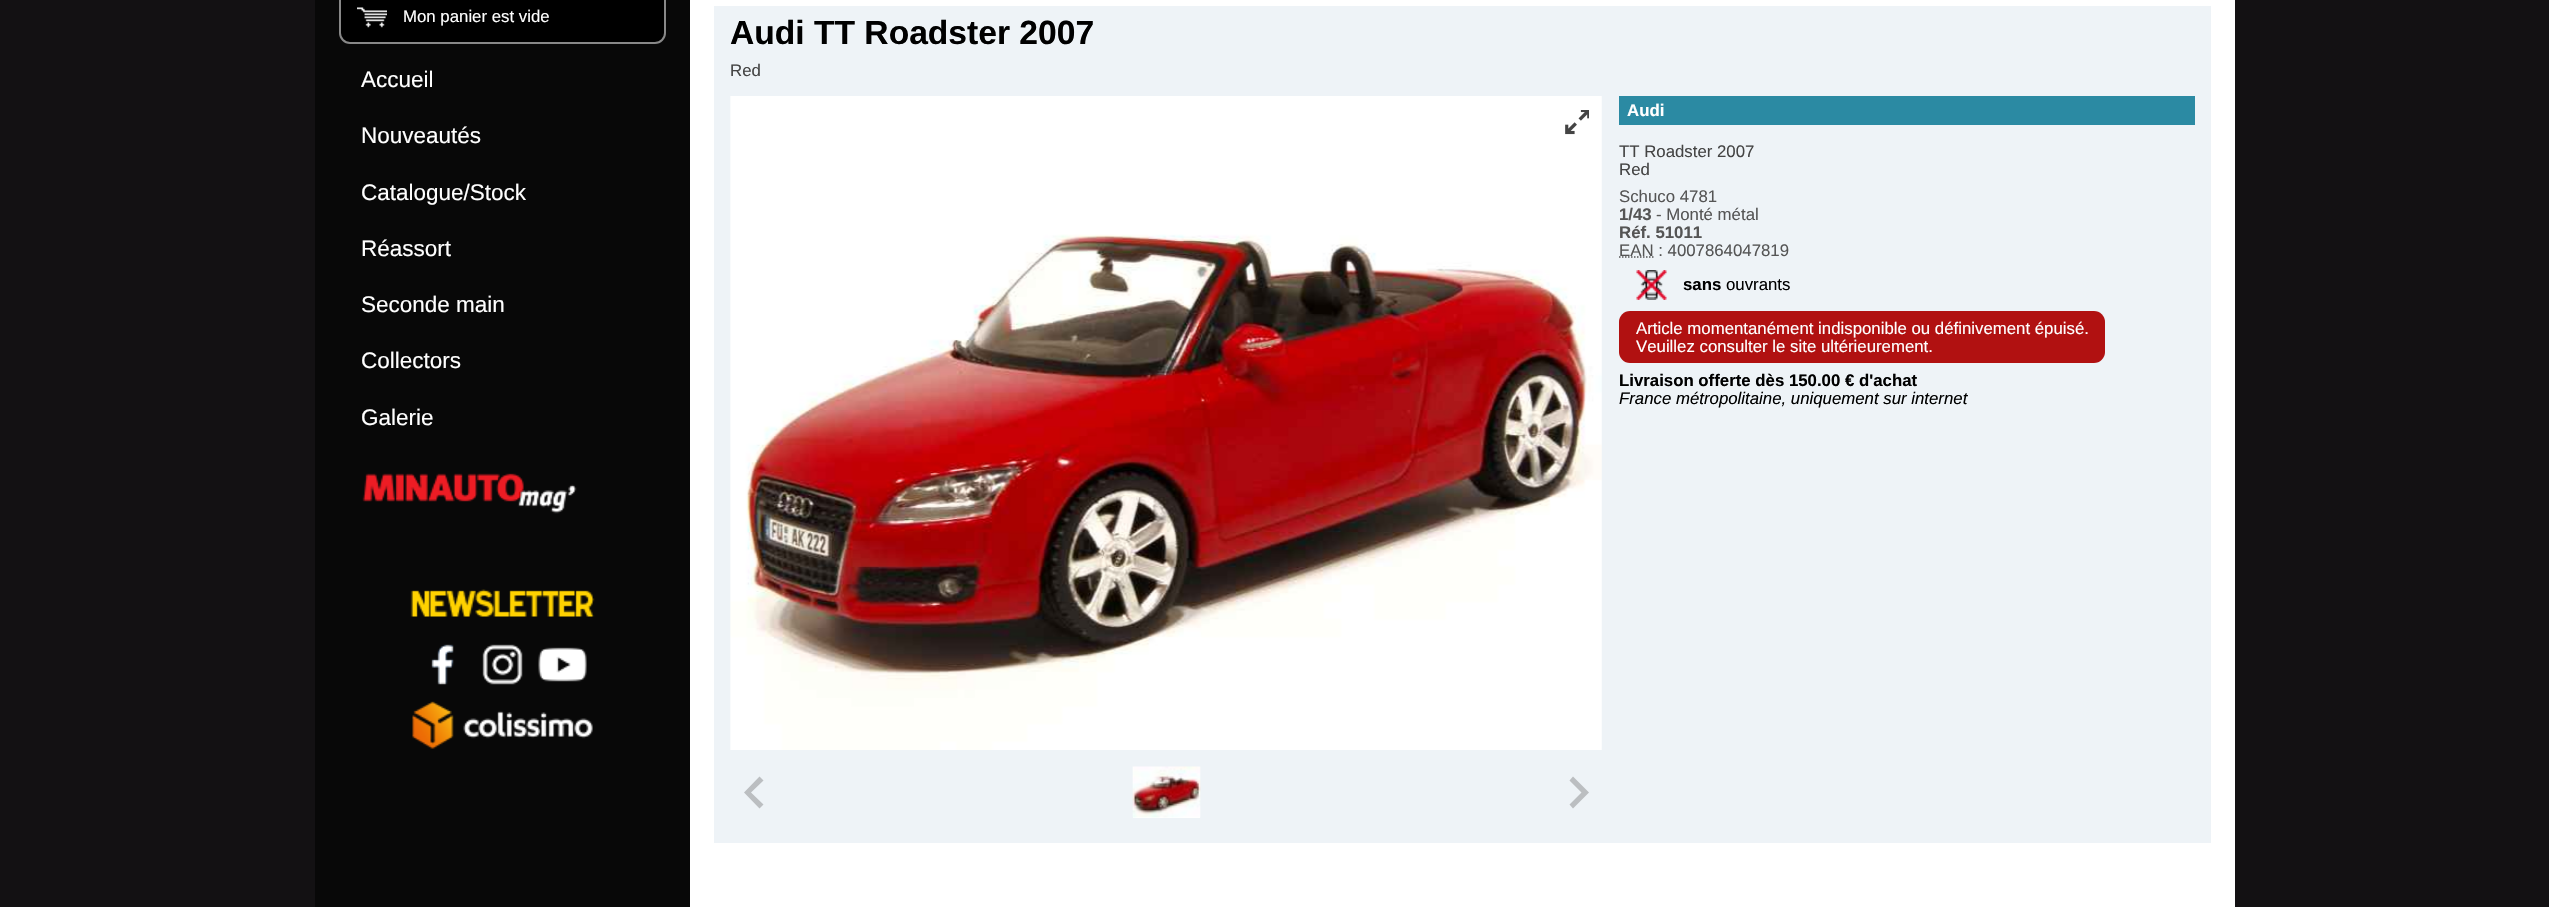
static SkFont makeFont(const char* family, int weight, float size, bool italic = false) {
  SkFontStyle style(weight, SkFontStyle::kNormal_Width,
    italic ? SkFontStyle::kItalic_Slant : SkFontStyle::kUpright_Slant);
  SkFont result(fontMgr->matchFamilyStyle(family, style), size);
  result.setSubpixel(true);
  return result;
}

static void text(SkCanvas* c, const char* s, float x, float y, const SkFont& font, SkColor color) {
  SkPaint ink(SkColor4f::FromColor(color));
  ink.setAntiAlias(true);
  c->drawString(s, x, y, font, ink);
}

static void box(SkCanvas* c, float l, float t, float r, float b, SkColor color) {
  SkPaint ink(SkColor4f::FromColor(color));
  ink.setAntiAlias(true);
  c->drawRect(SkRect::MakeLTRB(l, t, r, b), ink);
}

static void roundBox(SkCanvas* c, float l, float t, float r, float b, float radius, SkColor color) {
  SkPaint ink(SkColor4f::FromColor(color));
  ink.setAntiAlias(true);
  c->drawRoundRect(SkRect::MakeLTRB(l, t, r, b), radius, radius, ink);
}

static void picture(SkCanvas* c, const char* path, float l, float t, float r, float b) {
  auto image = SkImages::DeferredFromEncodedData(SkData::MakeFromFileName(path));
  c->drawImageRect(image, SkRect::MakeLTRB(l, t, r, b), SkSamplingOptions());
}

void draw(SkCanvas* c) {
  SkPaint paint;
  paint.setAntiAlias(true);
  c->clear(0xff131113);
  box(c, 315, 0, 690, 907, 0xff080808);
  roundBox(c, 339, -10, 666, 44, 11, 0xff000000);
  picture(c, "img_01.png", 357, 7, 387, 28);
  paint.setStyle(SkPaint::kStroke_Style);
  paint.setStrokeWidth(2);
  paint.setColor(0xff888888);
  c->drawRoundRect(SkRect::MakeLTRB(340, -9, 665, 43), 10, 10, paint);
  SkFont face1 = makeFont("Liberation Sans", 400, 16.8f);
  text(c, "Mon panier est vide", 403, 22, face1, 0xffffffff);
  SkFont face2 = makeFont("Liberation Sans", 400, 22.5f);
  text(c, "Accueil", 361, 87, face2, 0xffffffff);
  text(c, "Nouveautés", 361, 143, face2, 0xffffffff);
  text(c, "Catalogue/Stock", 361, 200, face2, 0xffffffff);
  text(c, "Réassort", 361, 256, face2, 0xffffffff);
  text(c, "Seconde main", 361, 312, face2, 0xffffffff);
  text(c, "Collectors", 361, 368, face2, 0xffffffff);
  text(c, "Galerie", 361, 425, face2, 0xffffffff);
  picture(c, "img_02.png", 362, 473, 577, 514);
  box(c, 690, 0, 2235, 907, 0xffffffff);
  box(c, 714, 6, 2211, 843, 0xffeef3f7);
  SkFont face3 = makeFont("Liberation Sans", 700, 33.6f);
  text(c, "Audi TT Roadster 2007", 730, 44, face3, 0xff000000);
  text(c, "Red", 730, 76, face1, 0xff444444);
  picture(c, "img_03.png", 730, 96, 1602, 750);
  picture(c, "img_04.png", 1565, 110, 1589, 135);
  box(c, 1133, 767, 1200, 818, 0xffffffff);
  picture(c, "img_05.png", 1132, 766, 1201, 818);
  paint.setStyle(SkPaint::kFill_Style);
  paint.setColor(0xffbbbec1);
  c->drawPath(SkPathBuilder().moveTo(759.5f, 776.5f).lineTo(763.5f, 780.5f).lineTo(751, 792.5f).lineTo(763.5f, 804.5f).lineTo(759.5f, 808.5f).lineTo(744, 792.5f).close().detach(), paint);
  c->drawPath(SkPathBuilder().moveTo(1573, 776.5f).lineTo(1569.5f, 780.5f).lineTo(1581.5f, 792.5f).lineTo(1569.5f, 804.5f).lineTo(1573, 808.5f).lineTo(1589, 792.5f).close().detach(), paint);
  box(c, 1619, 96, 2195, 125, 0xff2b8aa3);
  SkFont face4 = makeFont("Liberation Sans", 700, 16.8f);
  text(c, "Audi", 1627, 116, face4, 0xffffffff);
  text(c, "TT Roadster 2007", 1619, 157, face1, 0xff444444);
  text(c, "Red", 1619, 175, face1, 0xff444444);
  text(c, "Schuco 4781", 1619, 202, face1, 0xff555555);
  text(c, "1/43", 1619, 220, face4, 0xff555555);
  text(c, "- Monté métal", 1656, 220, face1, 0xff555555);
  text(c, "Réf. 51011", 1619, 238, face4, 0xff555555);
  paint.setStyle(SkPaint::kStroke_Style);
  paint.setStrokeWidth(1.5f);
  paint.setColor(0xff555555);
  paint.setPathEffect(SkDashPathEffect::Make({{1.5f, 1.5f}}, 0));
  c->drawPath(SkPathBuilder().moveTo(1619, 257).lineTo(1653.5f, 257).detach(), paint);
  paint.setPathEffect(nullptr);
  text(c, "EAN : 4007864047819", 1619, 256, face1, 0xff555555);
  picture(c, "img_06.png", 1636, 270, 1667, 300);
  text(c, "sans", 1683, 290, face4, 0xff000000);
  text(c, "ouvrants", 1726, 290, face1, 0xff000000);
  roundBox(c, 1619, 311, 2105, 363, 11, 0xffb11111);
  text(c, "Article momentanément indisponible ou définivement épuisé.", 1636, 334, face1, 0xffffffff);
  text(c, "Veuillez consulter le site ultérieurement.", 1636, 352, face1, 0xffffffff);
  text(c, "Livraison offerte dès 150.00 € d'achat", 1619, 386, face4, 0xff000000);
  SkFont face5 = makeFont("Liberation Sans", 400, 16.8f, true);
  text(c, "France métropolitaine, uniquement sur internet", 1619, 404, face5, 0xff000000);
  picture(c, "img_07.png", 410, 589, 595, 617);
  picture(c, "img_08.png", 431, 644, 454, 685);
  picture(c, "img_09.png", 482, 644, 523, 685);
  picture(c, "img_10.png", 538, 647, 587, 682);
  picture(c, "img_11.png", 412, 701, 593, 749);
}
